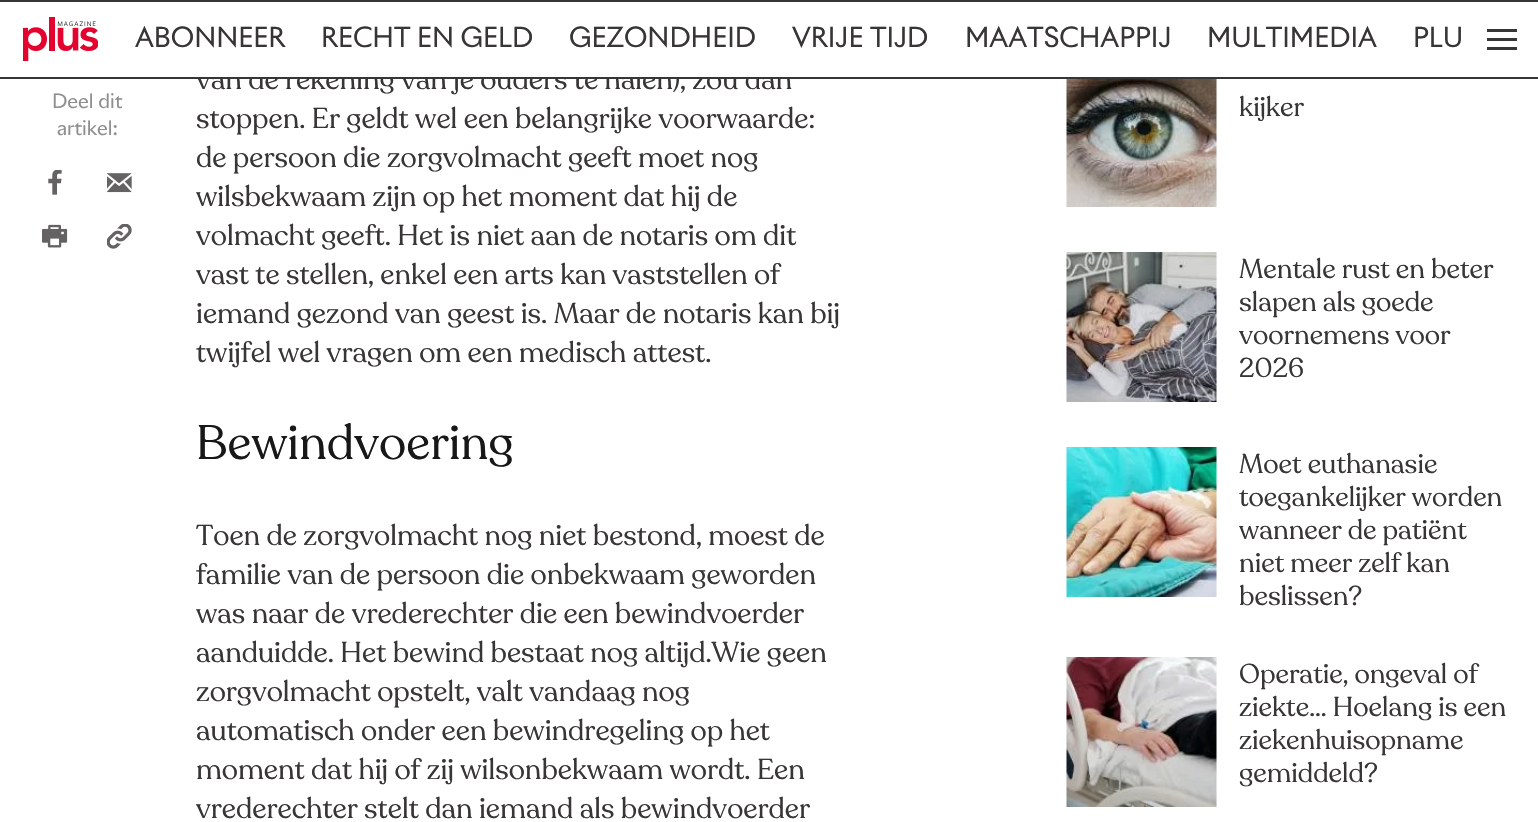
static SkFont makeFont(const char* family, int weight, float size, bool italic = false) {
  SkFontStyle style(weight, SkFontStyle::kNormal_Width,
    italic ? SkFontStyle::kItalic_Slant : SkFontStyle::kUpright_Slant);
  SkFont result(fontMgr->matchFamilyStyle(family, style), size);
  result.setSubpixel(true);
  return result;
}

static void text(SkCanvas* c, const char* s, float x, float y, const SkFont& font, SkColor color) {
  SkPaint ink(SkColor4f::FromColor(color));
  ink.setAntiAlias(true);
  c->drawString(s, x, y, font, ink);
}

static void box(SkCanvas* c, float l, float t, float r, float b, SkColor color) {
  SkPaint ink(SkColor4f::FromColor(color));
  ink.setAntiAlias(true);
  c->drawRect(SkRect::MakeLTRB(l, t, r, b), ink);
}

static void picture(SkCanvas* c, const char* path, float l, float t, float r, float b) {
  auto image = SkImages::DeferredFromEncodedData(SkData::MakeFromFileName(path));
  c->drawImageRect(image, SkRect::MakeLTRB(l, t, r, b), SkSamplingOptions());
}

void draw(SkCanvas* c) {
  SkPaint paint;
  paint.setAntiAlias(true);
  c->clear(0xffffffff);
  SkFont face1 = makeFont("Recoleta", 400, 28.5f);
  text(c, "van de rekening van je ouders te halen), zou dan", 196, 89, face1, 0xff383535);
  box(c, 196, 66, 789, 77, 0xffffffff);
  box(c, 0, 0, 1538, 2, 0xff383535);
  box(c, 0, 77, 1538, 79, 0xff383535);
  picture(c, "img_01.png", 23, 17, 98, 61);
  SkFont face2 = makeFont("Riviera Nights", 400, 27);
  text(c, "ABONNEER", 135, 47, face2, 0xff383535);
  text(c, "RECHT EN GELD", 321, 47, face2, 0xff383535);
  text(c, "GEZONDHEID", 569, 47, face2, 0xff383535);
  text(c, "VRIJE TIJD", 792, 47, face2, 0xff383535);
  text(c, "MAATSCHAPPIJ", 965, 47, face2, 0xff383535);
  text(c, "MULTIMEDIA", 1207, 47, face2, 0xff383535);
  text(c, "PLU", 1413, 47, face2, 0xff383535);
  box(c, 1487, 29, 1517, 32, 0xff383535);
  box(c, 1487, 38, 1517, 41, 0xff383535);
  box(c, 1487, 47, 1517, 50, 0xff383535);
  SkFont face3 = makeFont("Riviera Nights", 400, 19.5f);
  text(c, "Deel dit", 52, 108, face3, 0xff908e8f);
  text(c, "artikel:", 57, 135, face3, 0xff908e8f);
  picture(c, "img_02.png", 48, 170, 62, 195);
  picture(c, "img_03.png", 107, 173, 132, 193);
  picture(c, "img_04.png", 42, 224, 68, 248);
  picture(c, "img_05.png", 107, 224, 132, 249);
  text(c, "stoppen. Er geldt wel een belangrijke voorwaarde:", 196, 128, face1, 0xff383535);
  text(c, "de persoon die zorgvolmacht geeft moet nog", 196, 167, face1, 0xff383535);
  text(c, "wilsbekwaam zijn op het moment dat hij de", 196, 206, face1, 0xff383535);
  text(c, "volmacht geeft. Het is niet aan de notaris om dit", 196, 245, face1, 0xff383535);
  text(c, "vast te stellen, enkel een arts kan vaststellen of", 196, 284, face1, 0xff383535);
  text(c, "iemand gezond van geest is. Maar de notaris kan bij", 196, 323, face1, 0xff383535);
  text(c, "twijfel wel vragen om een medisch attest.", 196, 362, face1, 0xff383535);
  SkFont face4 = makeFont("Recoleta", 400, 48);
  text(c, "Bewindvoering", 196, 459, face4, 0xff191818);
  text(c, "Toen de zorgvolmacht nog niet bestond, moest de", 196, 545, face1, 0xff383535);
  text(c, "familie van de persoon die onbekwaam geworden", 196, 584, face1, 0xff383535);
  text(c, "was naar de vrederechter die een bewindvoerder", 196, 623, face1, 0xff383535);
  text(c, "aanduidde. Het bewind bestaat nog altijd.Wie geen", 196, 662, face1, 0xff383535);
  text(c, "zorgvolmacht opstelt, valt vandaag nog", 196, 701, face1, 0xff383535);
  text(c, "automatisch onder een bewindregeling op het", 196, 740, face1, 0xff383535);
  text(c, "moment dat hij of zij wilsonbekwaam wordt. Een", 196, 779, face1, 0xff383535);
  text(c, "vrederechter stelt dan iemand als bewindvoerder", 196, 818, face1, 0xff383535);
  box(c, 1216, 79, 1217, 207, 0xfffafafa);
  picture(c, "img_06.png", 1066, 79, 1217, 207);
  SkFont face5 = makeFont("Recoleta", 400, 27);
  text(c, "kijker", 1239, 116, face5, 0xff383535);
  box(c, 1216, 252, 1217, 402, 0xfffafafa);
  picture(c, "img_07.png", 1066, 252, 1217, 402);
  text(c, "Mentale rust en beter", 1239, 278, face5, 0xff383535);
  text(c, "slapen als goede", 1239, 311, face5, 0xff383535);
  text(c, "voornemens voor", 1239, 344, face5, 0xff383535);
  text(c, "2026", 1239, 377, face5, 0xff383535);
  box(c, 1216, 447, 1217, 597, 0xfffafafa);
  picture(c, "img_08.png", 1066, 447, 1217, 597);
  text(c, "Moet euthanasie", 1239, 473, face5, 0xff383535);
  text(c, "toegankelijker worden", 1239, 506, face5, 0xff383535);
  text(c, "wanneer de patiënt", 1239, 539, face5, 0xff383535);
  text(c, "niet meer zelf kan", 1239, 572, face5, 0xff383535);
  text(c, "beslissen?", 1239, 605, face5, 0xff383535);
  box(c, 1216, 657, 1217, 807, 0xfffafafa);
  picture(c, "img_09.png", 1066, 657, 1217, 807);
  text(c, "Operatie, ongeval of", 1239, 683, face5, 0xff383535);
  text(c, "ziekte... Hoelang is een", 1239, 716, face5, 0xff383535);
  text(c, "ziekenhuisopname", 1239, 749, face5, 0xff383535);
  text(c, "gemiddeld?", 1239, 782, face5, 0xff383535);
}
